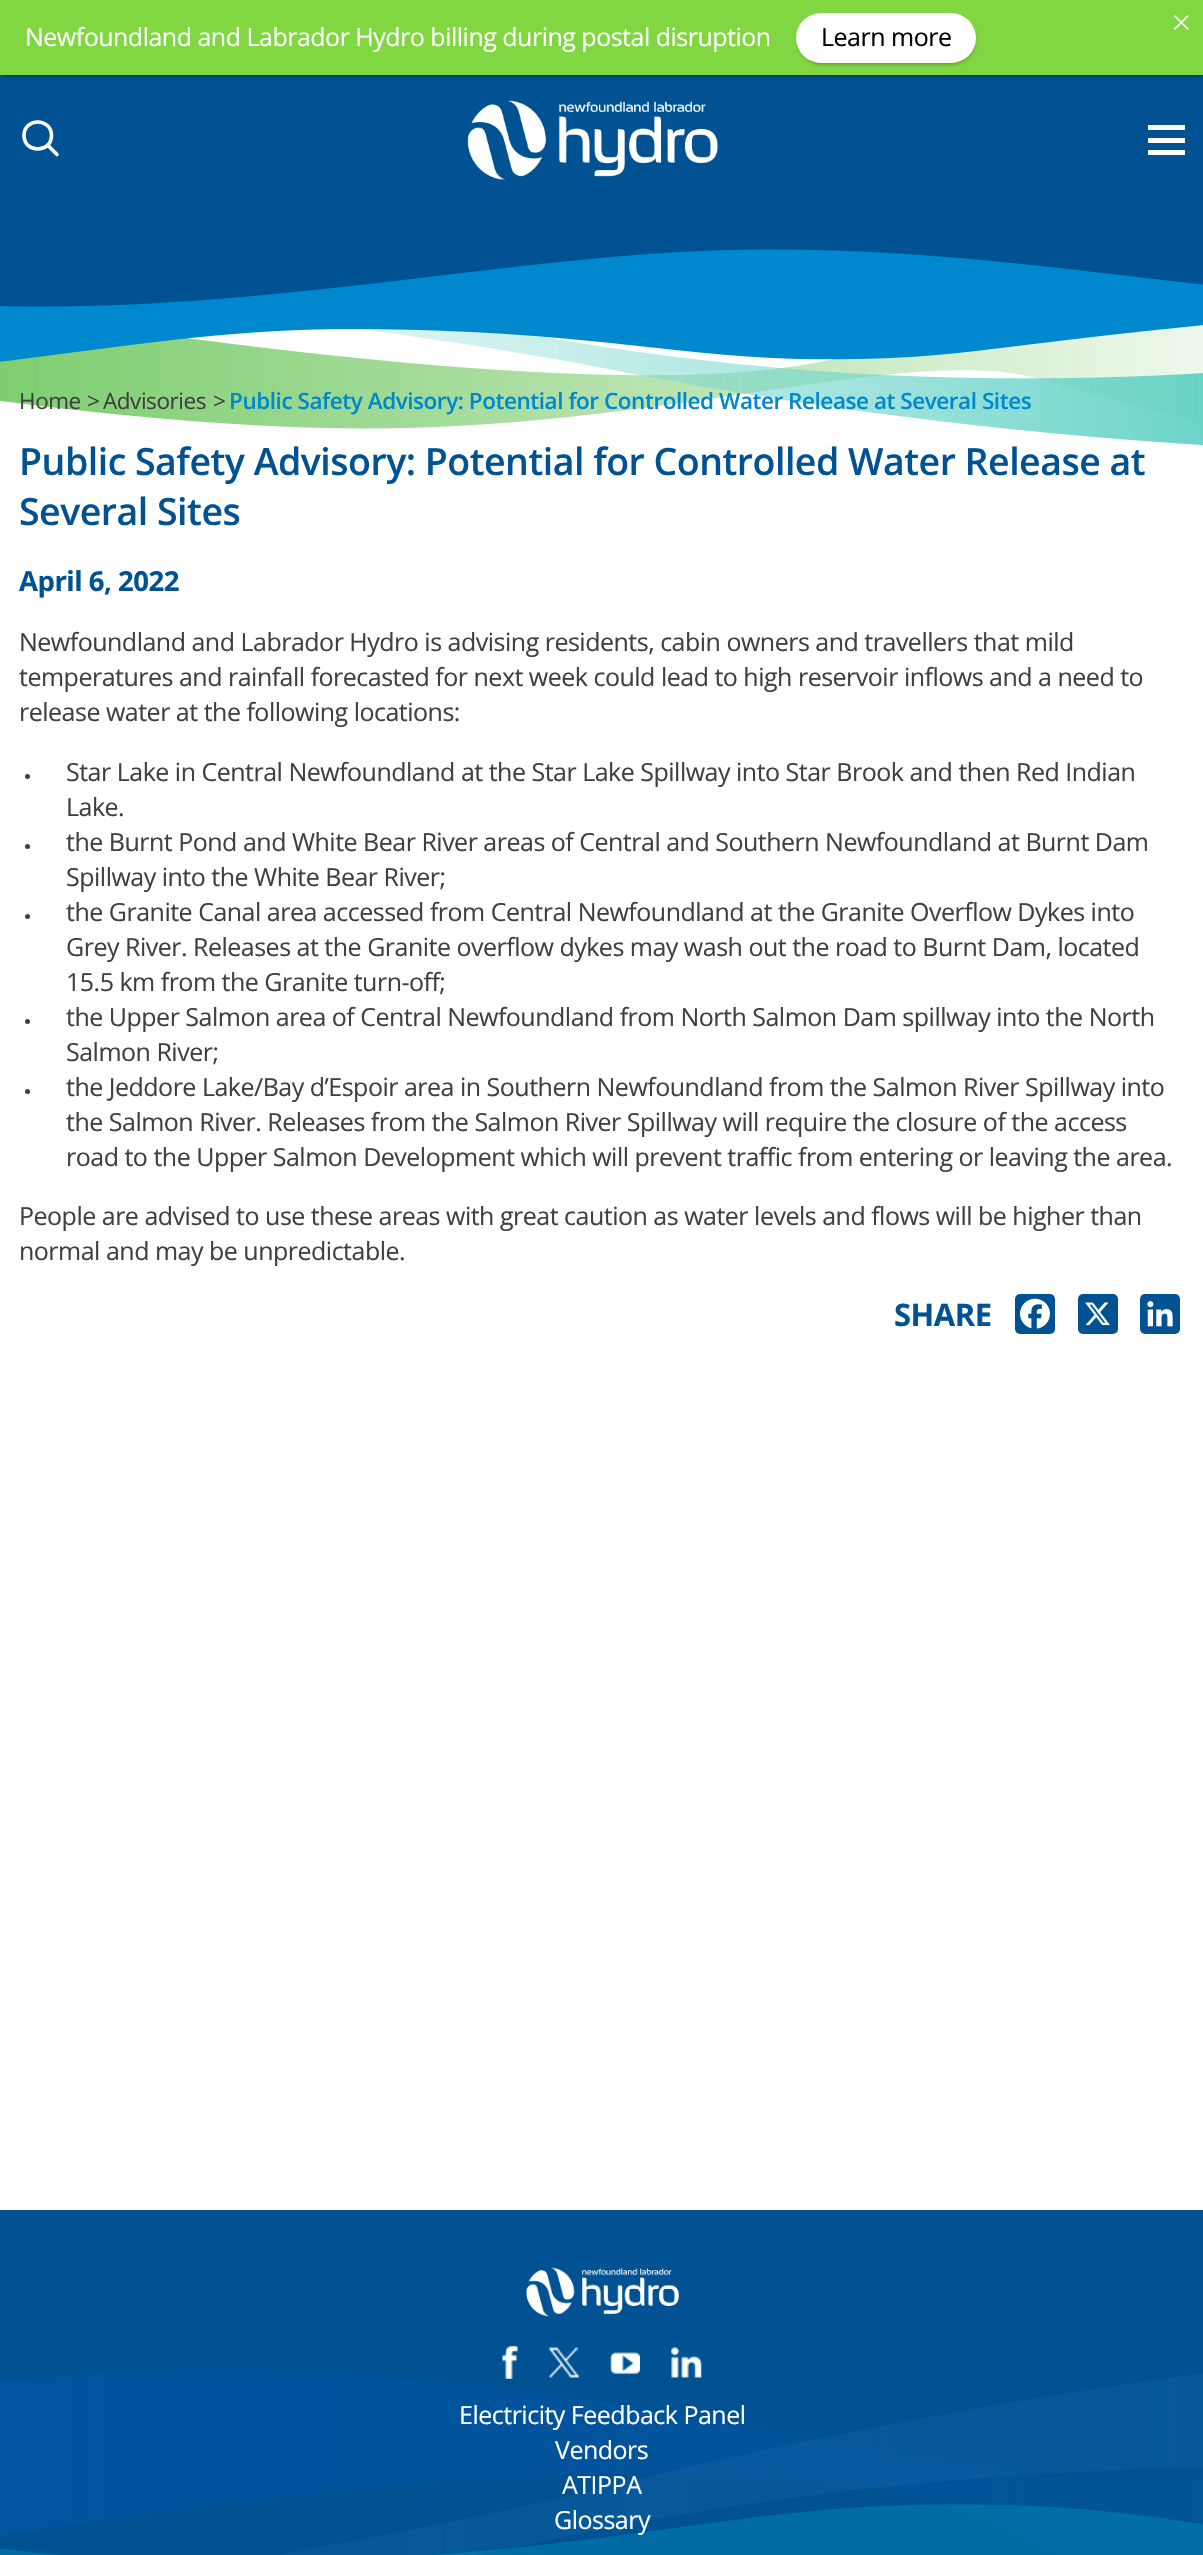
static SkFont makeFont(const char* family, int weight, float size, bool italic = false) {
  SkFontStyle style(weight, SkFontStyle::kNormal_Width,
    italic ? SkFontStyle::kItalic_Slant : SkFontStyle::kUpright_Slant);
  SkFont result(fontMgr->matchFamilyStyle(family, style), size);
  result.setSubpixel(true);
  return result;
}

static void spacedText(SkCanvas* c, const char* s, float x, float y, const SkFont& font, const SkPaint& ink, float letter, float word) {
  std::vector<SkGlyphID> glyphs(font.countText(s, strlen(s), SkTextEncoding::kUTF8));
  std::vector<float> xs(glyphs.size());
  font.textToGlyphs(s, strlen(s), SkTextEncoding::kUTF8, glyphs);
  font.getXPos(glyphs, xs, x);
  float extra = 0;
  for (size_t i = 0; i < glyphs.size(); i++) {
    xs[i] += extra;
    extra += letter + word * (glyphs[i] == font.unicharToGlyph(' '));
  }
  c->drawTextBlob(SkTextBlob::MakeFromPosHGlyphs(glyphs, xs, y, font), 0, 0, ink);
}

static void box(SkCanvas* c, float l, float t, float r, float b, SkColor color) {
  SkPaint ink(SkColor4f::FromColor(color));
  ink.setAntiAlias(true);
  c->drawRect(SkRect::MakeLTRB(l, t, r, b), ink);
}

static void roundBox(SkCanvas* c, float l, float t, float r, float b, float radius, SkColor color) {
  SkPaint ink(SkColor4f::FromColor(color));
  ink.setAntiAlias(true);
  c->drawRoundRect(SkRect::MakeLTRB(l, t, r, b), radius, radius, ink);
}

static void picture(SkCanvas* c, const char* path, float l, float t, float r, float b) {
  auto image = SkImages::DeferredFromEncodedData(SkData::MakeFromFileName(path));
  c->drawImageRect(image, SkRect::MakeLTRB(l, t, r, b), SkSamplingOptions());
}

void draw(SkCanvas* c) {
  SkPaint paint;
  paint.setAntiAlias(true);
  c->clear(0xffffffff);
  box(c, 0, 75, 1203, 213, 0xff005293);
  paint.setColor(0x80000000);
  paint.setMaskFilter(SkMaskFilter::MakeBlur(kNormal_SkBlurStyle, 2.5f));
  c->drawRect(SkRect::MakeLTRB(3, 5, 1201, 75), paint);
  paint.setMaskFilter(nullptr);
  box(c, 0, 0, 1203, 75, 0xff81d742);
  picture(c, "img_01.png", 1173, 15, 1189, 30);
  SkFont face1 = makeFont("Open Sans", 400, 25);
  paint.setColor(0xffffffff);
  spacedText(c, "Newfoundland and Labrador Hydro billing during postal disruption", 25, 46, face1, paint, -0.5f, 0);
  paint.setColor(0x80000000);
  paint.setMaskFilter(SkMaskFilter::MakeBlur(kNormal_SkBlurStyle, 2.5f));
  c->drawRoundRect(SkRect::MakeLTRB(799, 18, 974, 63), 22.5f, 22.5f, paint);
  paint.setMaskFilter(nullptr);
  roundBox(c, 796, 13, 976, 63, 25, 0xffffffff);
  paint.setColor(0xff000000);
  spacedText(c, "Learn more", 821, 46, face1, paint, -0.5f, 0);
  paint.setStyle(SkPaint::kStroke_Style);
  paint.setStrokeWidth(3.6f);
  paint.setStrokeCap(SkPaint::kRound_Cap);
  paint.setStrokeJoin(SkPaint::kRound_Join);
  paint.setColor(0xffffffff);
  c->drawPath(SkPathBuilder().moveTo(47.5f, 145).lineTo(57, 154.5f).moveTo(51.5f, 135.5f).cubicTo(51.5f, 153.5f, 24, 153.5f, 24, 135.5f).cubicTo(24, 117.5f, 51.5f, 117.5f, 51.5f, 135.5f).close().detach(), paint);
  picture(c, "img_02.png", 467, 100, 718, 180);
  box(c, 1148, 125, 1185, 130, 0xffffffff);
  box(c, 1148, 138, 1185, 143, 0xffffffff);
  box(c, 1148, 150, 1185, 155, 0xffffffff);
  picture(c, "img_03.png", 0, 213, 1203, 446);
  SkFont face2 = makeFont("Open Sans", 400, 22.5f);
  paint.setStyle(SkPaint::kFill_Style);
  paint.setColor(0xff404040);
  spacedText(c, "Home", 19, 409, face2, paint, -0.45f, 0);
  spacedText(c, ">", 87, 409, face2, paint, -0.45f, 0);
  spacedText(c, "Advisories", 103, 409, face2, paint, -0.45f, 0);
  spacedText(c, ">", 213, 409, face2, paint, -0.45f, 0);
  SkFont face3 = makeFont("Open Sans", 600, 22.5f);
  paint.setColor(0xff0088ce);
  spacedText(c, "Public Safety Advisory: Potential for Controlled Water Release at Several Sites", 229, 409, face3, paint, -0.45f, 0);
  SkFont face4 = makeFont("Open Sans", 600, 37.5f);
  paint.setColor(0xff005293);
  spacedText(c, "Public Safety Advisory: Potential for Controlled Water Release at", 19, 475, face4, paint, -0.5f, 0);
  spacedText(c, "Several Sites", 19, 525, face4, paint, -0.5f, 0);
  SkFont face5 = makeFont("Open Sans", 700, 27.5f);
  spacedText(c, "April 6, 2022", 19, 591, face5, paint, -0.5f, 0);
  paint.setColor(0xff404040);
  spacedText(c, "Newfoundland and Labrador Hydro is advising residents, cabin owners and travellers that mild", 19, 651, face1, paint, -0.5f, 0);
  spacedText(c, "temperatures and rainfall forecasted for next week could lead to high reservoir inflows and a need to", 19, 686, face1, paint, -0.5f, 0);
  spacedText(c, "release water at the following locations:", 19, 721, face1, paint, -0.5f, 0);
  c->drawCircle(27.5f, 776.5f, 2.5f, paint);
  spacedText(c, "Star Lake in Central Newfoundland at the Star Lake Spillway into Star Brook and then Red Indian", 66, 781, face1, paint, -0.5f, 0);
  spacedText(c, "Lake.", 66, 816, face1, paint, -0.5f, 0);
  c->drawCircle(27.5f, 846.5f, 2.5f, paint);
  spacedText(c, "the Burnt Pond and White Bear River areas of Central and Southern Newfoundland at Burnt Dam", 66, 851, face1, paint, -0.5f, 0);
  spacedText(c, "Spillway into the White Bear River;", 66, 886, face1, paint, -0.5f, 0);
  c->drawCircle(27.5f, 916.5f, 2.5f, paint);
  spacedText(c, "the Granite Canal area accessed from Central Newfoundland at the Granite Overflow Dykes into", 66, 921, face1, paint, -0.5f, 0);
  spacedText(c, "Grey River. Releases at the Granite overflow dykes may wash out the road to Burnt Dam, located", 66, 956, face1, paint, -0.5f, 0);
  spacedText(c, "15.5 km from the Granite turn-off;", 66, 991, face1, paint, -0.5f, 0);
  c->drawCircle(27.5f, 1021.5f, 2.5f, paint);
  spacedText(c, "the Upper Salmon area of Central Newfoundland from North Salmon Dam spillway into the North", 66, 1026, face1, paint, -0.5f, 0);
  spacedText(c, "Salmon River;", 66, 1061, face1, paint, -0.5f, 0);
  c->drawCircle(27.5f, 1091.5f, 2.5f, paint);
  spacedText(c, "the Jeddore Lake/Bay d’Espoir area in Southern Newfoundland from the Salmon River Spillway into", 66, 1096, face1, paint, -0.5f, 0);
  spacedText(c, "the Salmon River. Releases from the Salmon River Spillway will require the closure of the access", 66, 1131, face1, paint, -0.5f, 0);
  spacedText(c, "road to the Upper Salmon Development which will prevent traffic from entering or leaving the area.", 66, 1166, face1, paint, -0.5f, 0);
  spacedText(c, "People are advised to use these areas with great caution as water levels and flows will be higher than", 19, 1225, face1, paint, -0.5f, 0);
  spacedText(c, "normal and may be unpredictable.", 19, 1260, face1, paint, -0.5f, 0);
  SkFont face6 = makeFont("Open Sans", 700, 31);
  paint.setColor(0xff005293);
  spacedText(c, "SHARE", 894, 1326, face6, paint, -0.5f, 0);
  roundBox(c, 1015, 1294, 1055, 1334, 5, 0xff005293);
  picture(c, "img_04.png", 1020, 1298, 1050, 1329);
  roundBox(c, 1078, 1294, 1118, 1334, 5, 0xff005293);
  picture(c, "img_05.png", 1085, 1302, 1110, 1326);
  roundBox(c, 1140, 1294, 1180, 1334, 5, 0xff005293);
  picture(c, "img_06.png", 1147, 1301, 1173, 1327);
  box(c, 0, 2210, 1203, 2555, 0xff005293);
  picture(c, "img_07.png", 0, 2370, 1203, 2555);
  picture(c, "img_08.png", 526, 2267, 679, 2317);
  picture(c, "img_09.png", 502, 2346, 518, 2379);
  picture(c, "img_10.png", 548, 2347, 579, 2378);
  picture(c, "img_11.png", 610, 2352, 640, 2374);
  picture(c, "img_12.png", 671, 2347, 702, 2378);
  paint.setColor(0xffffffff);
  spacedText(c, "Electricity Feedback Panel", 459, 2424, face1, paint, -0.5f, 0);
  spacedText(c, "Vendors", 555, 2459, face1, paint, -0.5f, 0);
  spacedText(c, "ATIPPA", 562, 2494, face1, paint, -0.5f, 0);
  spacedText(c, "Glossary", 554, 2529, face1, paint, -0.5f, 0);
}
